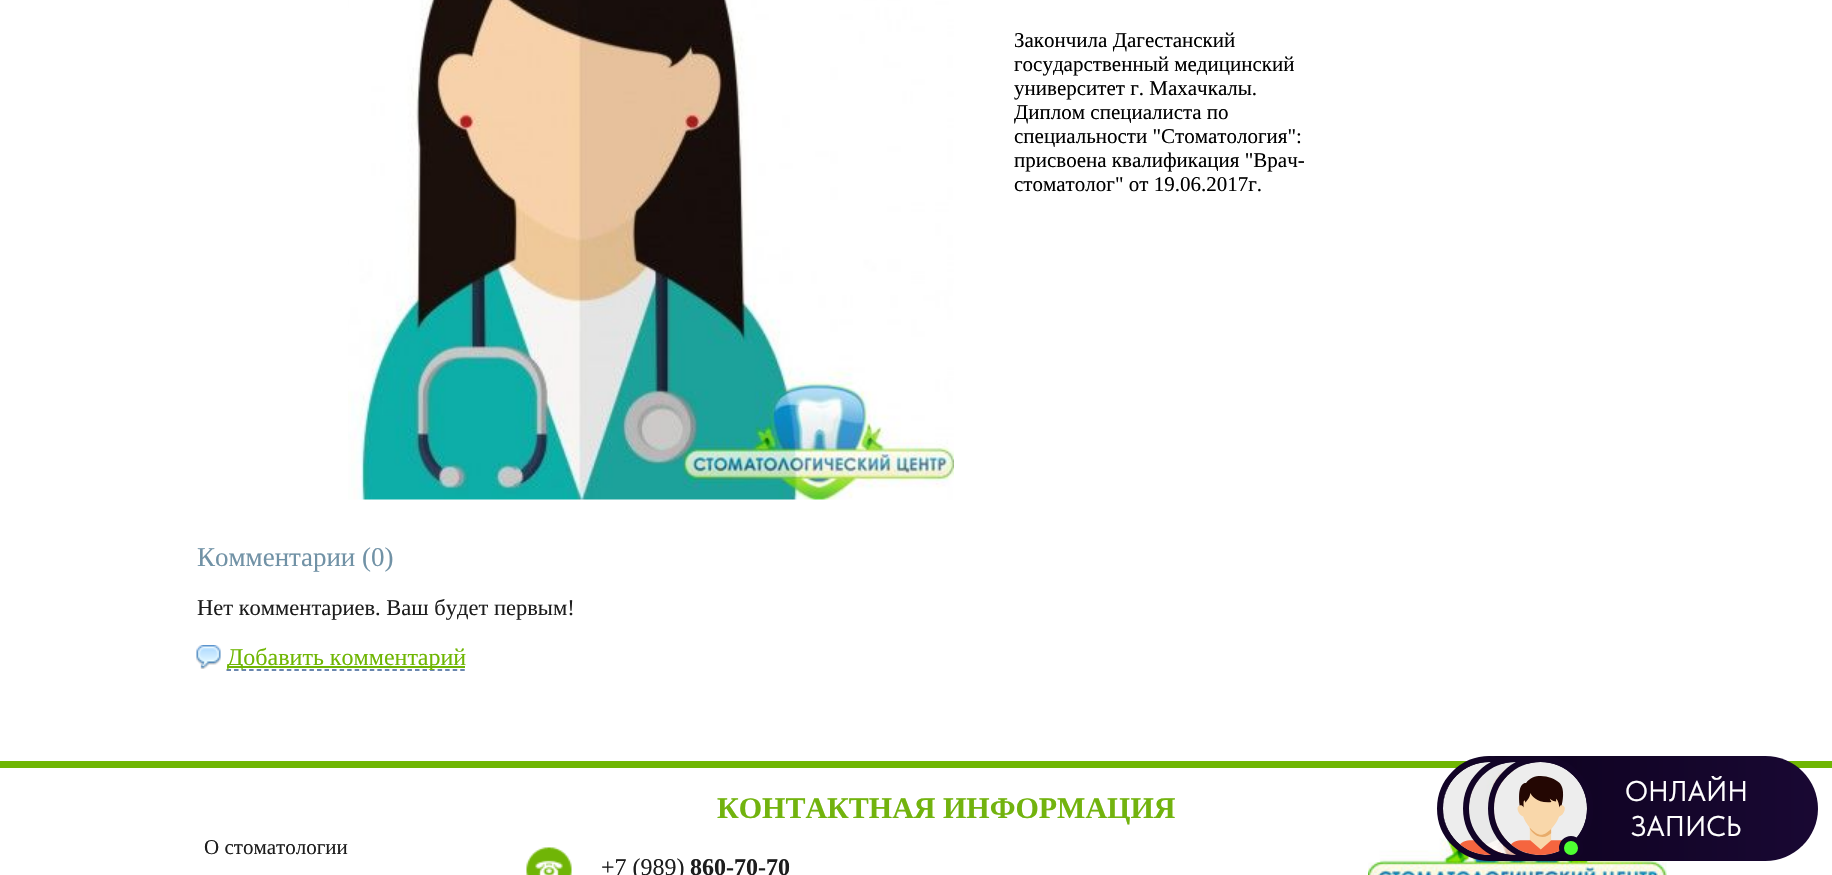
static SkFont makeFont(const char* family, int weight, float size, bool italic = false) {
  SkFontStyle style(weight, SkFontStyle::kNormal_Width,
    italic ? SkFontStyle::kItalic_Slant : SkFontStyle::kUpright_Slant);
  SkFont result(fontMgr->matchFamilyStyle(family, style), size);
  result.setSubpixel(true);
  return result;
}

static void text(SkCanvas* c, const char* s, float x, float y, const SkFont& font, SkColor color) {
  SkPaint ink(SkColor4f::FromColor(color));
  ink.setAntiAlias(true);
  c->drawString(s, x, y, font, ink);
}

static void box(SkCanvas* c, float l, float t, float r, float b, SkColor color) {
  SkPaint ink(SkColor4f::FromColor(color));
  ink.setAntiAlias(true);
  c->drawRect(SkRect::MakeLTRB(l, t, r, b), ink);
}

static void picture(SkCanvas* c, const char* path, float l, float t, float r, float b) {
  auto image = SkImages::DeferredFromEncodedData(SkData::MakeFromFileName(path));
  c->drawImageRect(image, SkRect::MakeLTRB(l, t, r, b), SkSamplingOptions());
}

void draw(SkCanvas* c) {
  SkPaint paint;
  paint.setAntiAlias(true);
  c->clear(0xffffffff);
  picture(c, "img_01.png", 348, 0, 954, 500);
  SkFont face1 = makeFont("Liberation Serif", 400, 21);
  text(c, "Закончила Дагестанский", 1014, 47, face1, 0xff000000);
  text(c, "государственный медицинский", 1014, 71, face1, 0xff000000);
  text(c, "университет г. Махачкалы.", 1014, 95, face1, 0xff000000);
  text(c, "Диплом специалиста по", 1014, 119, face1, 0xff000000);
  text(c, "специальности \"Стоматология\":", 1014, 143, face1, 0xff000000);
  text(c, "присвоена квалификация \"Врач-", 1014, 167, face1, 0xff000000);
  text(c, "стоматолог\" от 19.06.2017г.", 1014, 191, face1, 0xff000000);
  SkFont face2 = makeFont("Liberation Serif", 400, 27);
  text(c, "Комментарии (0)", 197, 566, face2, 0xff7192a6);
  SkFont face3 = makeFont("Liberation Serif", 400, 22.5f);
  text(c, "Нет комментариев. Ваш будет первым!", 197, 615, face3, 0xff1d1d1d);
  picture(c, "img_02.png", 196, 645, 221, 669);
  paint.setStyle(SkPaint::kStroke_Style);
  paint.setStrokeWidth(1.5f);
  paint.setColor(0xff375e93);
  paint.setPathEffect(SkDashPathEffect::Make({{4.5f, 3.04f}}, 0));
  c->drawPath(SkPathBuilder().moveTo(226.5f, 670).lineTo(465, 670).detach(), paint);
  paint.setPathEffect(nullptr);
  box(c, 227, 666, 465, 668, 0xff6fb603);
  SkFont face4 = makeFont("Liberation Serif", 400, 24);
  text(c, "Добавить комментарий", 227, 665, face4, 0xff6fb603);
  box(c, 0, 761, 1832, 768, 0xff6fb603);
  text(c, "О стоматологии", 204, 854, face1, 0xff1d1d1d);
  SkFont face5 = makeFont("Liberation Serif", 700, 30);
  text(c, "КОНТАКТНАЯ ИНФОРМАЦИЯ", 717, 818, face5, 0xff72b30e);
  picture(c, "img_03.png", 526, 847, 572, 875);
  text(c, "+7 (989)", 601, 875, face4, 0xff1d1d1d);
  SkFont face6 = makeFont("Liberation Serif", 700, 24);
  text(c, "860-70-70", 690, 875, face6, 0xff1d1d1d);
  picture(c, "img_04.png", 1368, 790, 1667, 875);
  paint.setStyle(SkPaint::kFill_Style);
  {
    const SkColor colors[] = {0xff0c011c, 0xff190833};
    const float stops[] = {0, 1};
    const SkPoint ends[] = {{1443, 809}, {1818, 809}};
    paint.setShader(SkGradientShader::MakeLinear(ends, colors, stops, 2, SkTileMode::kClamp));
    paint.setAlpha(255);
  }
  c->drawRoundRect(SkRect::MakeLTRB(1443, 756, 1818, 861), 52.5f, 52.5f, paint);
  paint.setShader(nullptr);
  paint.setColor(0xffededed);
  c->drawCircle(1489.5f, 808.5f, 46.5f, paint);
  picture(c, "img_05.png", 1459, 777, 1503, 855);
  paint.setStyle(SkPaint::kStroke_Style);
  paint.setStrokeWidth(6);
  paint.setColor(0xff120427);
  c->drawCircle(1489.5f, 808.5f, 49.5f, paint);
  picture(c, "img_06.png", 1469, 762, 1529, 855);
  c->drawCircle(1515.5f, 808.5f, 49.5f, paint);
  paint.setStyle(SkPaint::kFill_Style);
  paint.setColor(0xffededed);
  c->drawCircle(1540.5f, 808.5f, 46.5f, paint);
  picture(c, "img_07.png", 1511, 776, 1565, 855);
  paint.setStyle(SkPaint::kStroke_Style);
  paint.setColor(0xff120427);
  c->drawCircle(1540.5f, 808.5f, 49.5f, paint);
  paint.setStyle(SkPaint::kFill_Style);
  paint.setColor(0xff4eff31);
  c->drawCircle(1571, 848, 9.5f, paint);
  paint.setStyle(SkPaint::kStroke_Style);
  paint.setStrokeWidth(5);
  paint.setColor(0xff120427);
  c->drawCircle(1571, 848, 9.5f, paint);
  SkFont face7 = makeFont("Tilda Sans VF", 400, 28.5f);
  text(c, "ОНЛАЙН", 1625, 801, face7, 0xffffffff);
  text(c, "ЗАПИСЬ", 1631, 836, face7, 0xffffffff);
}
